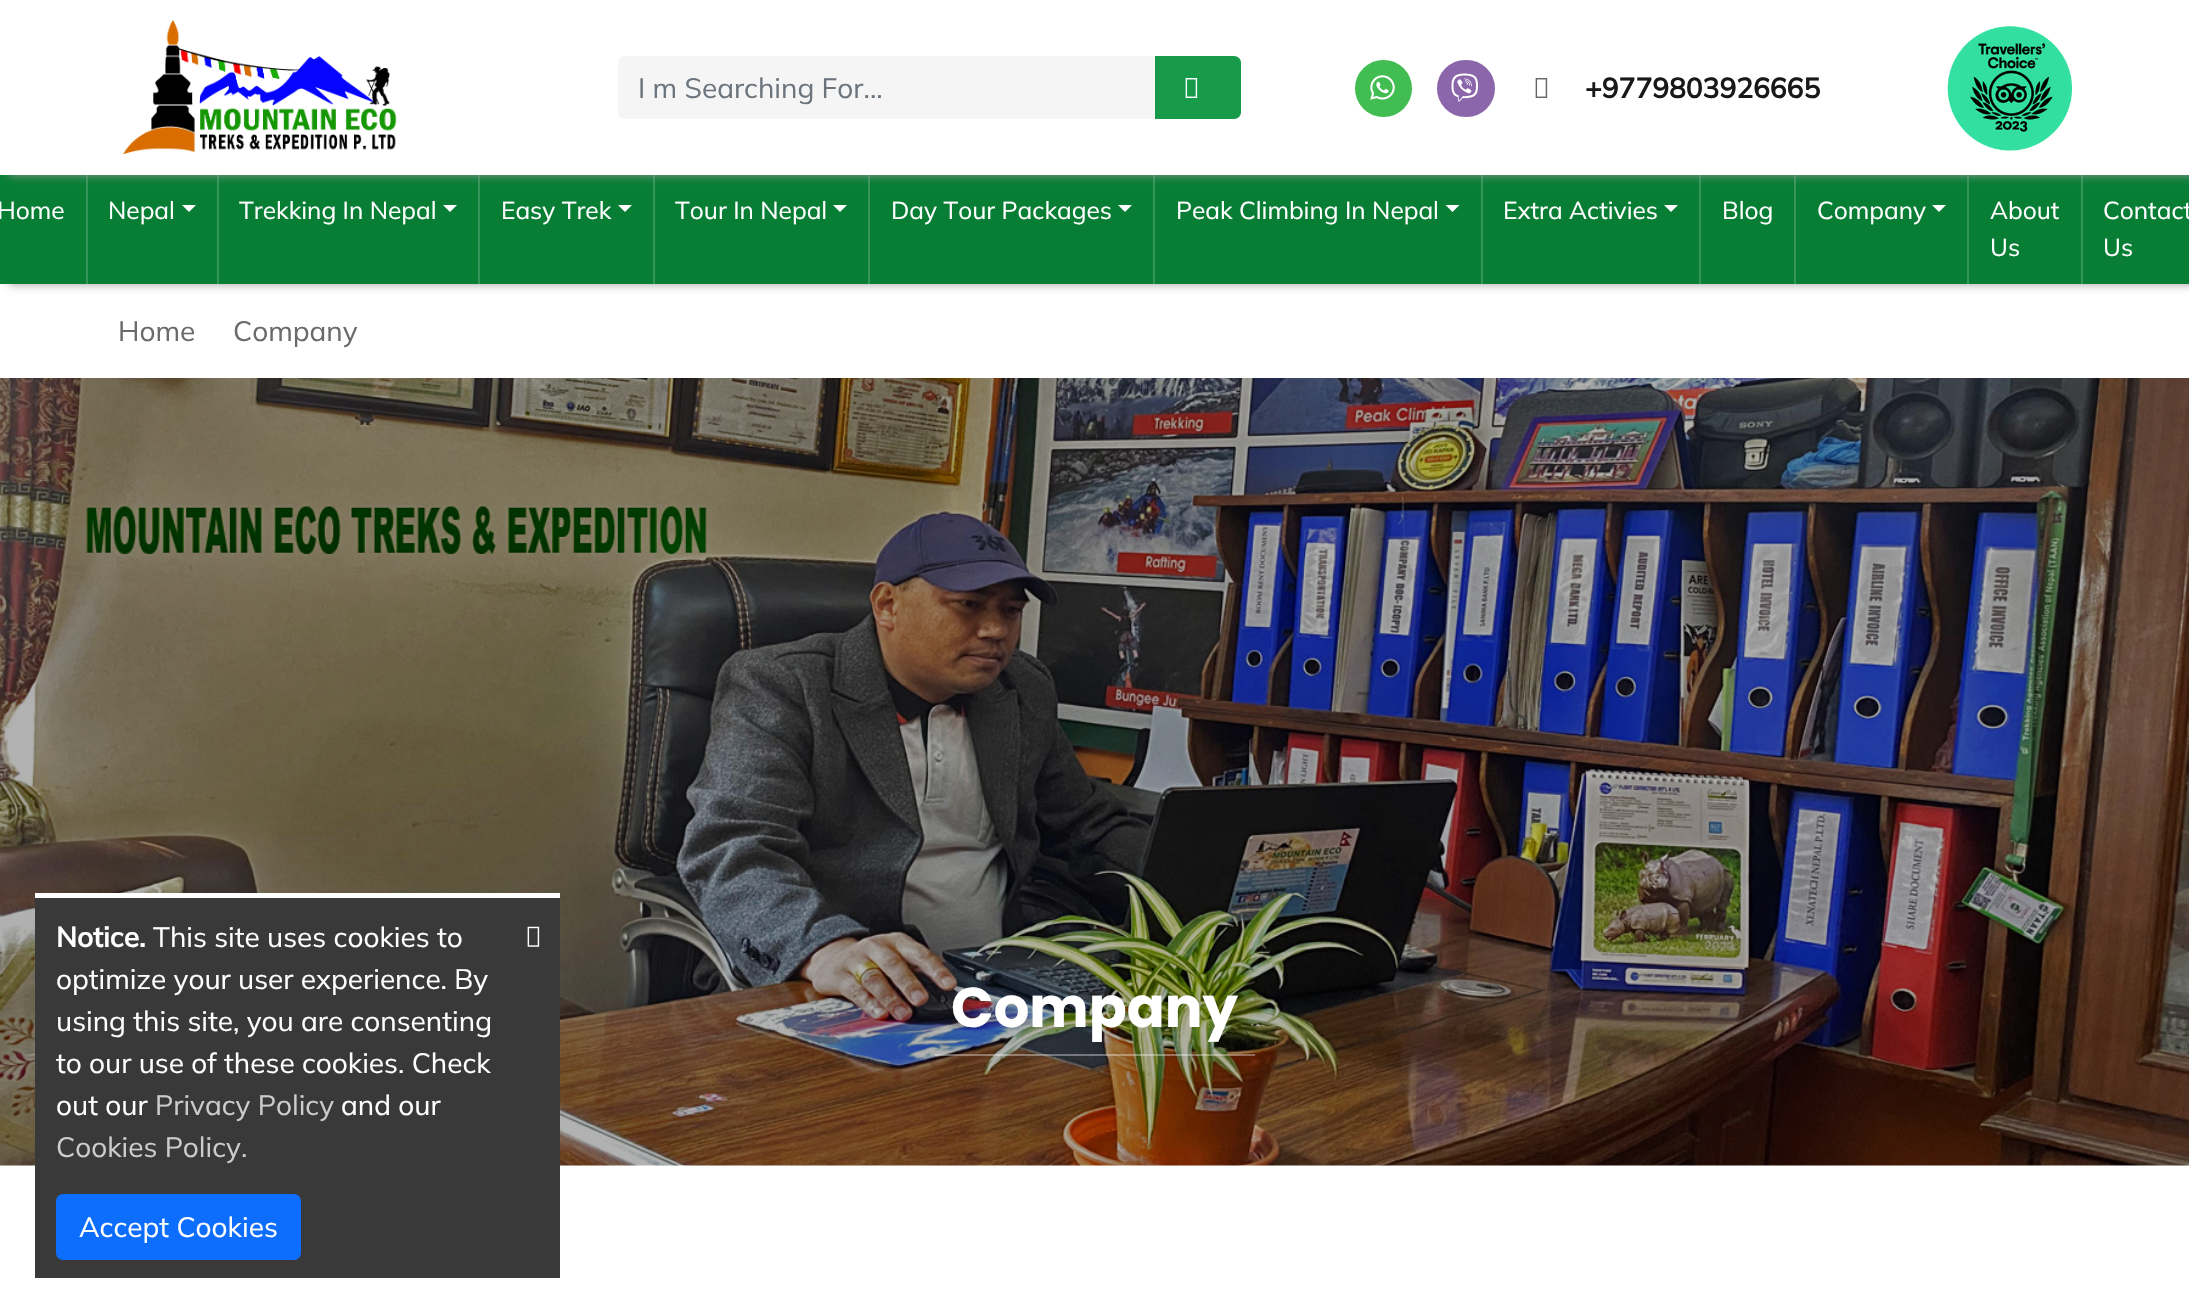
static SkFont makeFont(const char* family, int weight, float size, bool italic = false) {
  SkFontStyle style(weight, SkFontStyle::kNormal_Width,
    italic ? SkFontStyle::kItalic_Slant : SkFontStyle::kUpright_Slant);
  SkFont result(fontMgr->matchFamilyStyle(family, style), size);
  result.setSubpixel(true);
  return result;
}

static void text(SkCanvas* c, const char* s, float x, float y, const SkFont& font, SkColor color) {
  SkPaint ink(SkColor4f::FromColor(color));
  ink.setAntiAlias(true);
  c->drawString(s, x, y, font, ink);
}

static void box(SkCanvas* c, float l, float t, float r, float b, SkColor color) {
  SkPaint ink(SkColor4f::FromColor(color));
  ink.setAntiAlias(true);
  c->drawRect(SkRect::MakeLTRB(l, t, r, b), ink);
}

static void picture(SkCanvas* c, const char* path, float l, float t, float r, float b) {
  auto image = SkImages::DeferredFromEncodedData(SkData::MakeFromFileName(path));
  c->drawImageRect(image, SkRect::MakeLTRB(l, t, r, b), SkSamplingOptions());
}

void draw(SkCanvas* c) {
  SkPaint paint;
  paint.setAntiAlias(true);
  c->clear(0xffffffff);
  paint.setColor(0xff999999);
  paint.setMaskFilter(SkMaskFilter::MakeBlur(kNormal_SkBlurStyle, 4.5f));
  c->drawRect(SkRect::MakeLTRB(9, 175, 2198, 284), paint);
  paint.setMaskFilter(nullptr);
  box(c, 0, 175, 2189, 284, 0xff077e34);
  box(c, 86, 175, 88, 284, 0xff349559);
  box(c, 217, 175, 219, 284, 0xff349559);
  box(c, 478, 175, 480, 284, 0xff349559);
  box(c, 653, 175, 655, 284, 0xff349559);
  box(c, 868, 175, 870, 284, 0xff349559);
  box(c, 1153, 175, 1155, 284, 0xff349559);
  box(c, 1481, 175, 1483, 284, 0xff349559);
  box(c, 1699, 175, 1701, 284, 0xff349559);
  box(c, 1794, 175, 1796, 284, 0xff349559);
  box(c, 1967, 175, 1969, 284, 0xff349559);
  box(c, 2081, 175, 2083, 284, 0xff349559);
  paint.setMaskFilter(SkMaskFilter::MakeBlur(kNormal_SkBlurStyle, 4.5f));
  c->drawRect(SkRect::MakeLTRB(9, 0, 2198, 175), paint);
  paint.setMaskFilter(nullptr);
  box(c, 0, 0, 2189, 175, 0xffffffff);
  picture(c, "img_01.png", 122, 20, 397, 155);
  paint.setColor(0xff179b4a);
  c->drawPath(SkPathBuilder().moveTo(1153, 56).lineTo(1234, 56).cubicTo(1238, 56, 1241, 59, 1241, 63).lineTo(1241, 112).cubicTo(1241, 116, 1238, 119, 1234, 119).lineTo(1153, 119).close().detach(), paint);
  paint.setColor(0xfff5f5f5);
  c->drawPath(SkPathBuilder().moveTo(625, 56).lineTo(1155, 56).lineTo(1155, 119).lineTo(625, 119).cubicTo(621, 119, 618, 116, 618, 112).lineTo(618, 63).cubicTo(618, 59, 621, 56, 625, 56).close().detach(), paint);
  SkFont face1 = makeFont("Mulish", 400, 28);
  text(c, "I m Searching For...", 638, 98, face1, 0xff6c757d);
  picture(c, "img_02.png", 1185, 78, 1198, 98);
  paint.setColor(0xff41bd51);
  c->drawCircle(1383.5f, 88.5f, 27.5f, paint);
  paint.setStyle(SkPaint::kStroke_Style);
  paint.setStrokeWidth(2);
  c->drawCircle(1383.5f, 88.5f, 27.5f, paint);
  picture(c, "img_03.png", 1370, 75, 1395, 100);
  paint.setStyle(SkPaint::kFill_Style);
  paint.setColor(0xff8c66aa);
  c->drawRoundRect(SkRect::MakeLTRB(1438, 61, 1494, 116), 27.5f, 27.5f, paint);
  paint.setStyle(SkPaint::kStroke_Style);
  c->drawRoundRect(SkRect::MakeLTRB(1438, 61, 1494, 116), 27.5f, 27.5f, paint);
  picture(c, "img_04.png", 1451, 73, 1478, 102);
  picture(c, "img_05.png", 1535, 78, 1548, 98);
  SkFont face2 = makeFont("Mulish", 700, 28);
  text(c, "+9779803926665", 1585, 98, face2, 0xff191919);
  picture(c, "img_06.png", 1947, 26, 2072, 151);
  SkFont face3 = makeFont("Mulish", 400, 24.5f);
  text(c, "Home", -3, 219, face3, 0xffffffff);
  text(c, "Nepal", 108, 219, face3, 0xffffffff);
  paint.setStyle(SkPaint::kFill_Style);
  paint.setColor(0xffffffff);
  c->drawPath(SkPathBuilder().moveTo(182, 205).lineTo(196, 205).lineTo(189, 212).close().detach(), paint);
  text(c, "Trekking In Nepal", 239, 219, face3, 0xffffffff);
  c->drawPath(SkPathBuilder().moveTo(443, 205).lineTo(457, 205).lineTo(450, 212).close().detach(), paint);
  text(c, "Easy Trek", 501, 219, face3, 0xffffffff);
  c->drawPath(SkPathBuilder().moveTo(618, 205).lineTo(632, 205).lineTo(625, 212).close().detach(), paint);
  text(c, "Tour In Nepal", 675, 219, face3, 0xffffffff);
  c->drawPath(SkPathBuilder().moveTo(833, 205).lineTo(847, 205).lineTo(840, 212).close().detach(), paint);
  text(c, "Day Tour Packages", 891, 219, face3, 0xffffffff);
  c->drawPath(SkPathBuilder().moveTo(1118, 205).lineTo(1132, 205).lineTo(1125, 212).close().detach(), paint);
  text(c, "Peak Climbing In Nepal", 1176, 219, face3, 0xffffffff);
  c->drawPath(SkPathBuilder().moveTo(1445.5f, 205).lineTo(1459.5f, 205).lineTo(1452.5f, 212).close().detach(), paint);
  text(c, "Extra Activies", 1503, 219, face3, 0xffffffff);
  c->drawPath(SkPathBuilder().moveTo(1664, 205).lineTo(1678, 205).lineTo(1671, 212).close().detach(), paint);
  text(c, "Blog", 1722, 219, face3, 0xffffffff);
  text(c, "Company", 1817, 219, face3, 0xffffffff);
  c->drawPath(SkPathBuilder().moveTo(1932, 205).lineTo(1946, 205).lineTo(1939, 212).close().detach(), paint);
  text(c, "About", 1990, 219, face3, 0xffffffff);
  text(c, "Us", 1990, 256, face3, 0xffffffff);
  text(c, "Contact", 2103, 219, face3, 0xffffffff);
  text(c, "Us", 2103, 256, face3, 0xffffffff);
  text(c, "Home", 118, 341, face1, 0xff6a6a6a);
  text(c, "Company", 233, 341, face1, 0xff6a6a6a);
  picture(c, "img_08.png", 0, 378, 2189, 1166);
  box(c, 35, 898, 560, 1278, 0xff393939);
  box(c, 35, 893, 560, 898, 0xffffffff);
  text(c, "Notice.", 56, 947, face2, 0xffffffff);
  text(c, "This site uses cookies to", 153, 947, face1, 0xffffffff);
  text(c, "optimize your user experience. By", 56, 989, face1, 0xffffffff);
  text(c, "using this site, you are consenting", 56, 1031, face1, 0xffffffff);
  text(c, "to our use of these cookies. Check", 56, 1073, face1, 0xffffffff);
  text(c, "out our", 56, 1115, face1, 0xffffffff);
  text(c, "Privacy Policy", 155, 1115, face1, 0xffcccccc);
  text(c, "and our", 341, 1115, face1, 0xffffffff);
  text(c, "Cookies Policy.", 56, 1157, face1, 0xffcccccc);
  paint.setColor(0xff0d6efd);
  c->drawRoundRect(SkRect::MakeLTRB(57, 1195, 300, 1259), 6, 6, paint);
  paint.setStyle(SkPaint::kStroke_Style);
  c->drawRoundRect(SkRect::MakeLTRB(57, 1195, 300, 1259), 6, 6, paint);
  text(c, "Accept Cookies", 79, 1237, face1, 0xffffffff);
  picture(c, "img_07.png", 527, 926, 540, 947);
  box(c, 935, 1054, 1255, 1056, 0x59ffffff);
  SkFont face4 = makeFont("Poppins", 700, 56);
  text(c, "Company", 951, 1027, face4, 0xffffffff);
}
